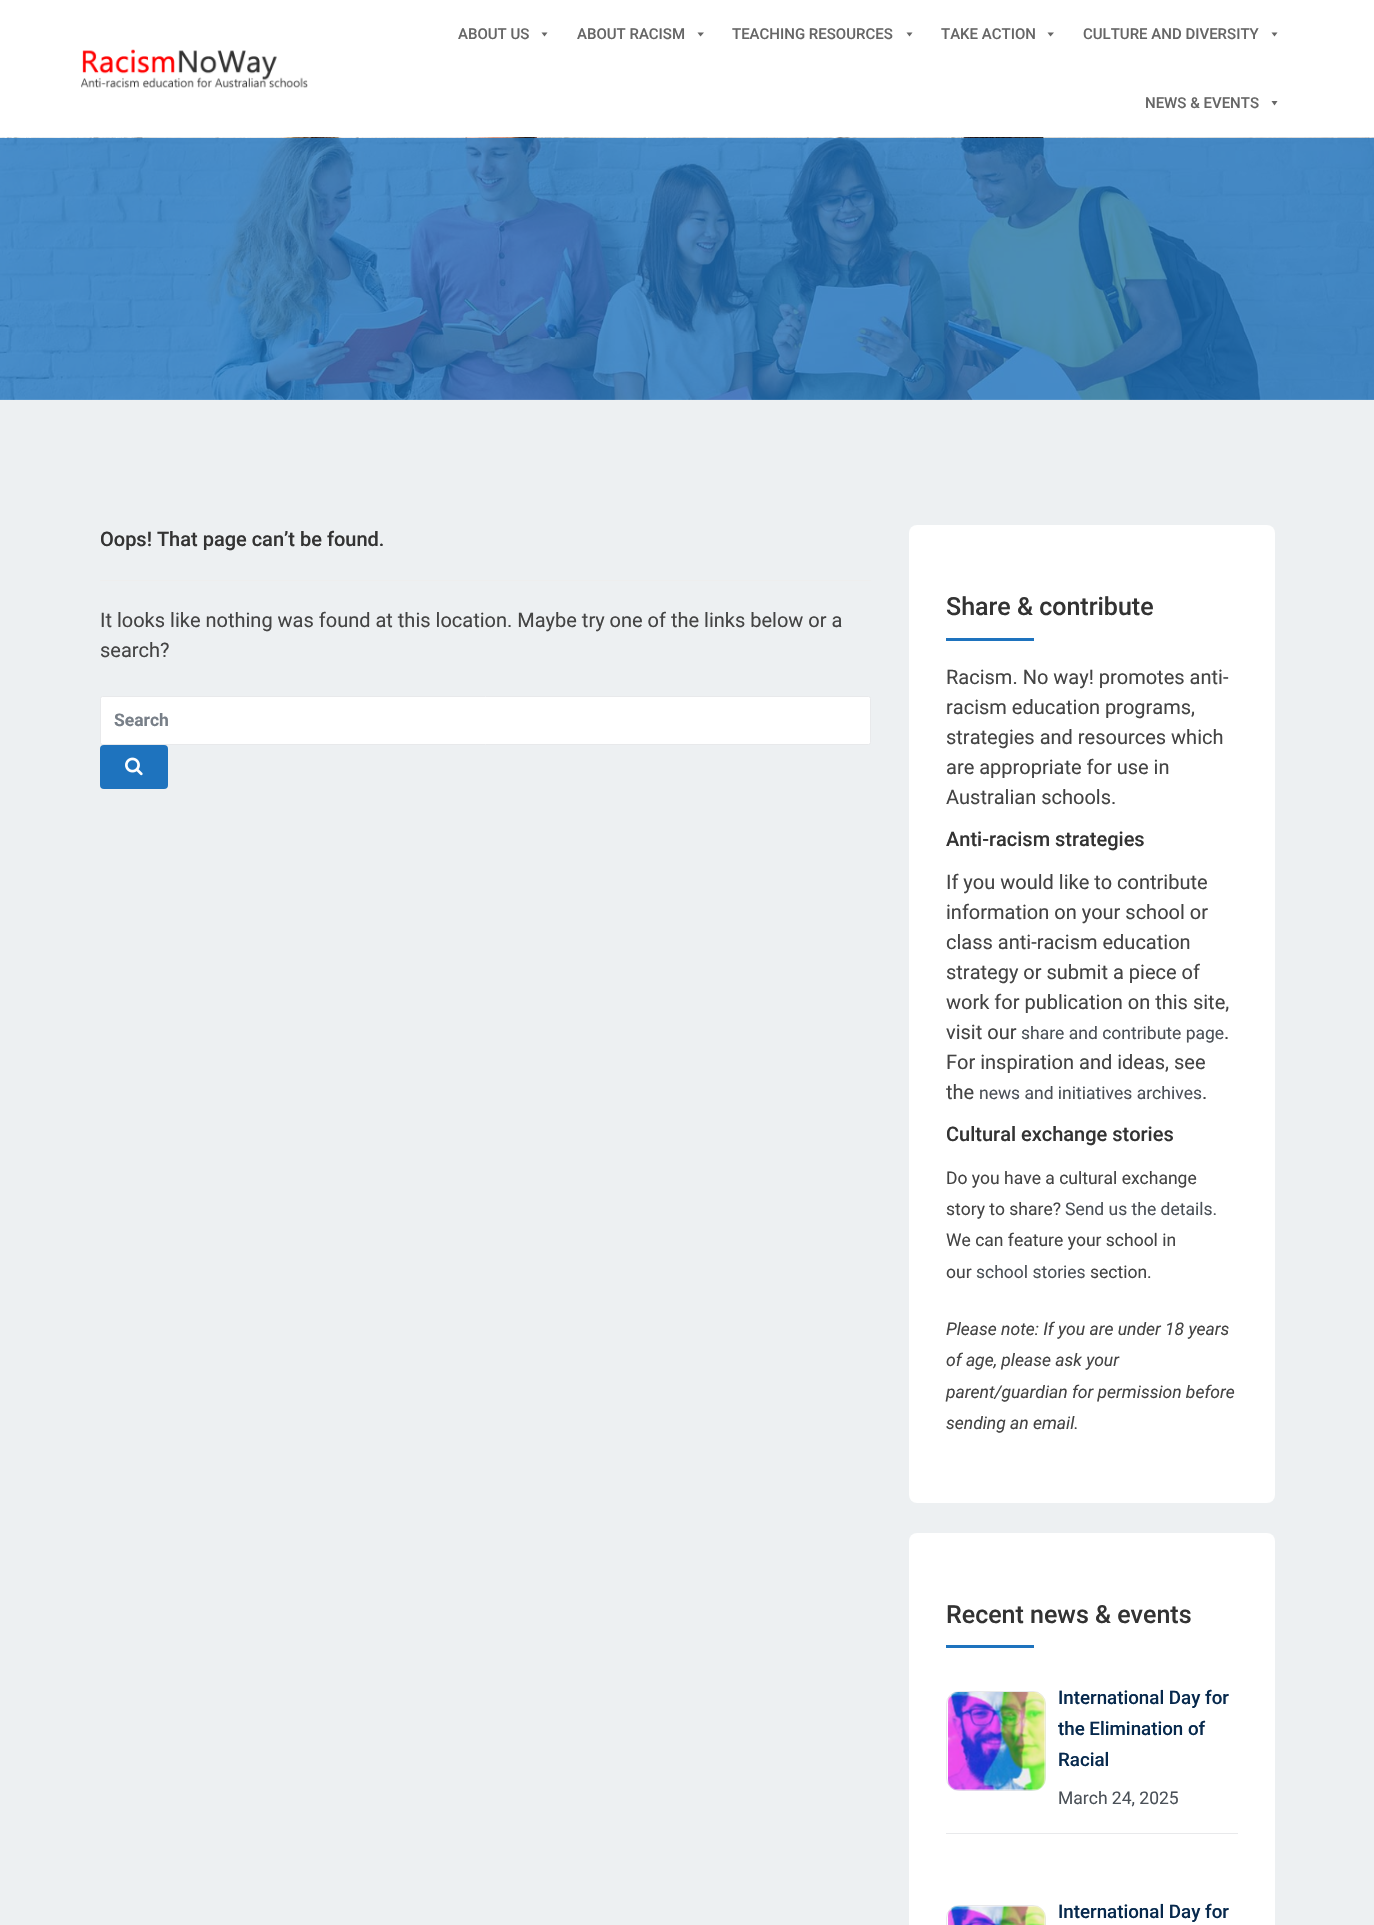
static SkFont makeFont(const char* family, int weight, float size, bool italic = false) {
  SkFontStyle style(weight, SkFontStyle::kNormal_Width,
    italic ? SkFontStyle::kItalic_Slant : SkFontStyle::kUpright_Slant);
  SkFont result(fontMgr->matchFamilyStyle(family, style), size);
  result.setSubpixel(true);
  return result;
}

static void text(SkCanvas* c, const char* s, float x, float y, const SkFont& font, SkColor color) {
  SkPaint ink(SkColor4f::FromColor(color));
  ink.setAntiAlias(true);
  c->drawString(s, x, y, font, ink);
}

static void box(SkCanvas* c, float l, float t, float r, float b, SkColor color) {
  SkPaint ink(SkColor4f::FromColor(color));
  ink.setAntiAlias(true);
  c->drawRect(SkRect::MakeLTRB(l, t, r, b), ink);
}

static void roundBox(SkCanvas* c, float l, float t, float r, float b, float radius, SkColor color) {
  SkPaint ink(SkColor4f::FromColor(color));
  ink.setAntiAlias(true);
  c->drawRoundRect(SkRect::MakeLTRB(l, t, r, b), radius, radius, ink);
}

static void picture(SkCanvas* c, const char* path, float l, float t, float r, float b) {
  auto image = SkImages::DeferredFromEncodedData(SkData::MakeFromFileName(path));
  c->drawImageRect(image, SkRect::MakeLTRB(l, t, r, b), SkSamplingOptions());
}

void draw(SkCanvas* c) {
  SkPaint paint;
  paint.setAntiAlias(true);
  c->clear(0xffffffff);
  picture(c, "img_01.png", 81, 49, 308, 88);
  SkFont face1 = makeFont("Roboto", 500, 15);
  text(c, "ABOUT US", 458, 39, face1, 0xff666666);
  paint.setColor(0xff666666);
  c->drawPath(SkPathBuilder().moveTo(547.5f, 32.5f).lineTo(544.5f, 36.5f).lineTo(541.5f, 32.5f).close().detach(), paint);
  text(c, "ABOUT RACISM", 577, 39, face1, 0xff666666);
  c->drawPath(SkPathBuilder().moveTo(704, 32.5f).lineTo(700.5f, 36.5f).lineTo(697.5f, 32.5f).close().detach(), paint);
  text(c, "TEACHING RESOURCES", 732, 39, face1, 0xff666666);
  c->drawPath(SkPathBuilder().moveTo(912.5f, 32.5f).lineTo(909.5f, 36.5f).lineTo(906.5f, 32.5f).close().detach(), paint);
  text(c, "TAKE ACTION", 941, 39, face1, 0xff666666);
  c->drawPath(SkPathBuilder().moveTo(1054, 32.5f).lineTo(1050.5f, 36.5f).lineTo(1047.5f, 32.5f).close().detach(), paint);
  text(c, "CULTURE AND DIVERSITY", 1083, 39, face1, 0xff666666);
  c->drawPath(SkPathBuilder().moveTo(1277.5f, 32.5f).lineTo(1274.5f, 36.5f).lineTo(1271.5f, 32.5f).close().detach(), paint);
  text(c, "NEWS & EVENTS", 1145, 108, face1, 0xff666666);
  c->drawPath(SkPathBuilder().moveTo(1277.5f, 101).lineTo(1274.5f, 105.5f).lineTo(1271.5f, 101).close().detach(), paint);
  picture(c, "img_02.png", 0, 137, 1374, 400);
  box(c, 0, 400, 1374, 1925, 0xffedf0f2);
  box(c, 100, 580, 871, 581, 0xffeeeeee);
  SkFont face2 = makeFont("Roboto", 500, 20);
  text(c, "Oops! That page can’t be found.", 100, 546, face2, 0xff333333);
  SkFont face3 = makeFont("Roboto", 400, 20);
  text(c, "It looks like nothing was found at this location. Maybe try one of the links below or a", 100, 627, face3, 0xff444444);
  text(c, "search?", 100, 657, face3, 0xff444444);
  paint.setColor(0xffffffff);
  c->drawRoundRect(SkRect::MakeLTRB(100.5f, 696.5f, 870.5f, 744.5f), 2, 2, paint);
  paint.setStyle(SkPaint::kStroke_Style);
  paint.setStrokeWidth(1);
  paint.setColor(0xffe8e9eb);
  c->drawRoundRect(SkRect::MakeLTRB(100.5f, 696.5f, 870.5f, 744.5f), 2, 2, paint);
  SkFont face4 = makeFont("Roboto", 700, 17.5f);
  text(c, "Search", 114, 726, face4, 0xff787f88);
  roundBox(c, 100, 745, 168, 789, 4, 0xff1e73be);
  picture(c, "img_03.png", 125, 757, 143, 776);
  roundBox(c, 909, 525, 1275, 1503, 8, 0xffffffff);
  SkFont face5 = makeFont("Roboto", 500, 25);
  text(c, "Share & contribute", 946, 615, face5, 0xff333333);
  box(c, 946, 638, 1034, 641, 0xff1e73be);
  text(c, "Racism. No way! promotes anti-", 946, 684, face3, 0xff444444);
  text(c, "racism education programs,", 946, 714, face3, 0xff444444);
  text(c, "strategies and resources which", 946, 744, face3, 0xff444444);
  text(c, "are appropriate for use in", 946, 774, face3, 0xff444444);
  text(c, "Australian schools.", 946, 804, face3, 0xff444444);
  text(c, "Anti-racism strategies", 946, 846, face2, 0xff333333);
  text(c, "If you would like to contribute", 946, 889, face3, 0xff444444);
  text(c, "information on your school or", 946, 919, face3, 0xff444444);
  text(c, "class anti-racism education", 946, 949, face3, 0xff444444);
  text(c, "strategy or submit a piece of", 946, 979, face3, 0xff444444);
  text(c, "work for publication on this site,", 946, 1009, face3, 0xff444444);
  text(c, "visit our", 946, 1039, face3, 0xff444444);
  SkFont face6 = makeFont("Roboto", 400, 17.5f);
  text(c, "share and contribute page", 1021, 1039, face6, 0xff4b5158);
  text(c, ".", 1224, 1039, face3, 0xff444444);
  text(c, "For inspiration and ideas, see", 946, 1069, face3, 0xff444444);
  text(c, "the", 946, 1099, face3, 0xff444444);
  text(c, "news and initiatives archives", 979, 1099, face6, 0xff4b5158);
  text(c, ".", 1202, 1099, face3, 0xff444444);
  text(c, "Cultural exchange stories", 946, 1141, face2, 0xff333333);
  text(c, "Do you have a cultural exchange", 946, 1184, face6, 0xff444444);
  text(c, "story to share?", 946, 1215, face6, 0xff444444);
  text(c, "Send us the details.", 1065, 1215, face6, 0xff4b5158);
  text(c, "We can feature your school in", 946, 1246, face6, 0xff444444);
  text(c, "our", 946, 1278, face6, 0xff444444);
  text(c, "school stories", 976, 1278, face6, 0xff4b5158);
  text(c, "section.", 1090, 1278, face6, 0xff444444);
  SkFont face7 = makeFont("Roboto", 400, 17.5f, true);
  text(c, "Please note: If you are under 18 years", 946, 1335, face7, 0xff444444);
  text(c, "of age, please ask your", 946, 1366, face7, 0xff444444);
  text(c, "parent/guardian for permission before", 946, 1398, face7, 0xff444444);
  text(c, "sending an email.", 946, 1429, face7, 0xff444444);
  roundBox(c, 909, 1533, 1275, 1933, 8, 0xffffffff);
  text(c, "Recent news & events", 946, 1623, face5, 0xff333333);
  box(c, 946, 1645, 1034, 1648, 0xff1e73be);
  box(c, 946, 1833, 1238, 1834, 0xffe8e9eb);
  c->drawRoundRect(SkRect::MakeLTRB(946.5f, 1691.5f, 1045.5f, 1790.5f), 12.5f, 12.5f, paint);
  picture(c, "img_04.png", 948, 1692, 1046, 1791);
  SkFont face8 = makeFont("Roboto", 500, 18.75f);
  text(c, "International Day for", 1058, 1704, face8, 0xff07294d);
  text(c, "the Elimination of", 1058, 1735, face8, 0xff07294d);
  text(c, "Racial", 1058, 1766, face8, 0xff07294d);
  text(c, "March 24, 2025", 1058, 1804, face6, 0xff4b5158);
  c->drawRoundRect(SkRect::MakeLTRB(946.5f, 1905.5f, 1045.5f, 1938.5f), 12.5f, 12.5f, paint);
  picture(c, "img_05.png", 948, 1905, 1046, 1925);
  text(c, "International Day for", 1058, 1918, face8, 0xff07294d);
}
